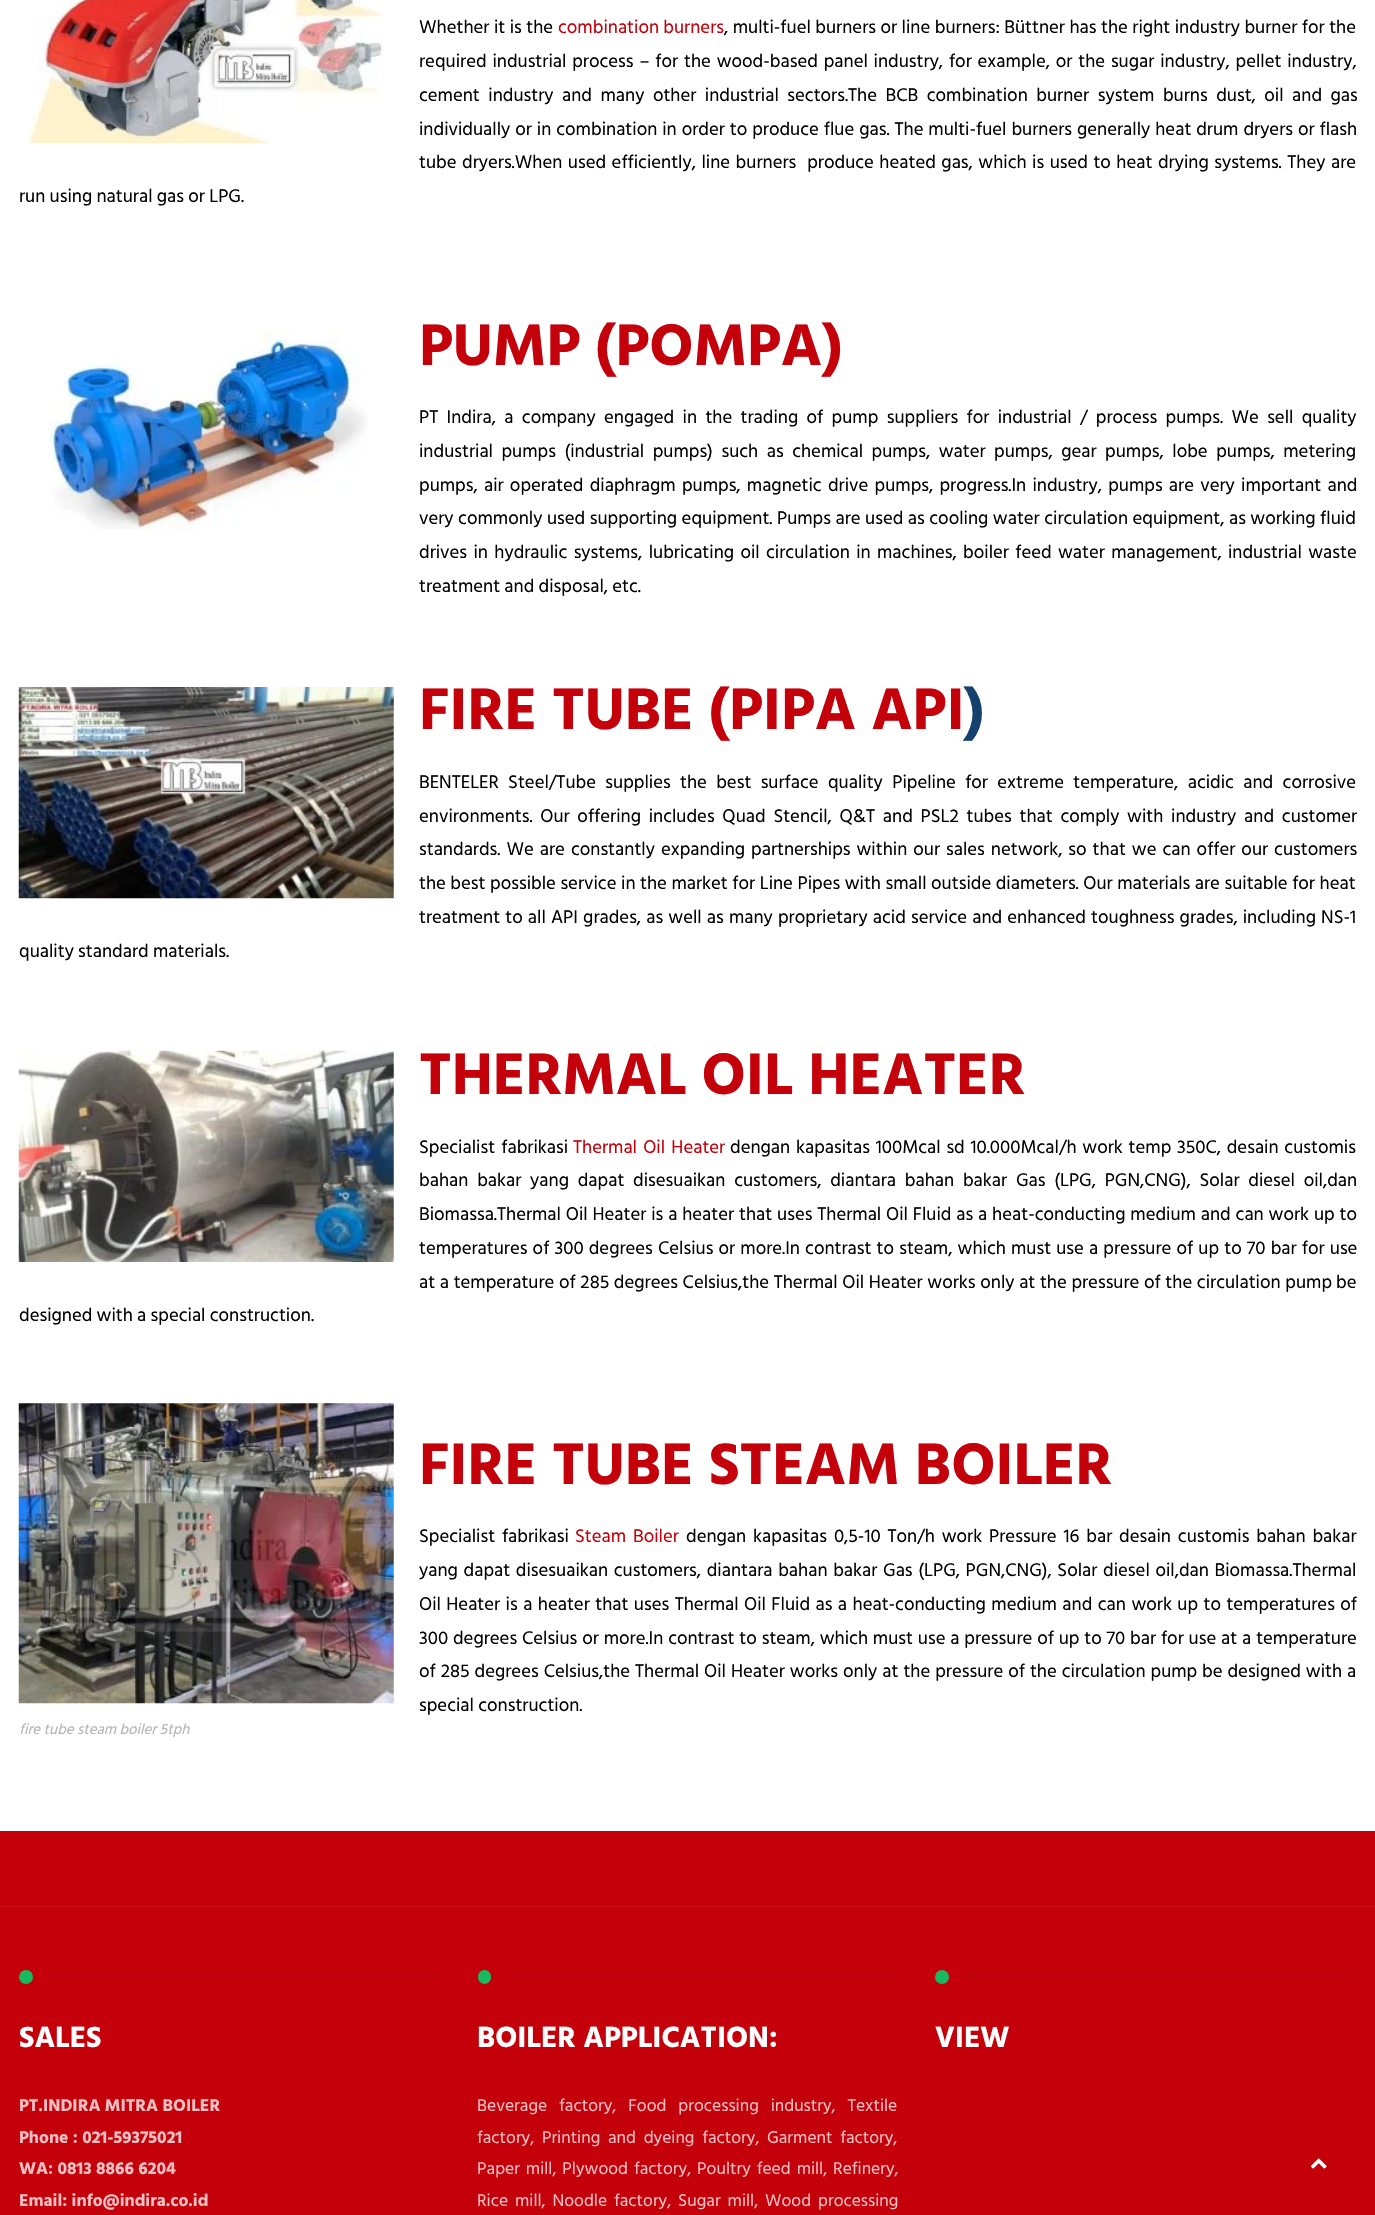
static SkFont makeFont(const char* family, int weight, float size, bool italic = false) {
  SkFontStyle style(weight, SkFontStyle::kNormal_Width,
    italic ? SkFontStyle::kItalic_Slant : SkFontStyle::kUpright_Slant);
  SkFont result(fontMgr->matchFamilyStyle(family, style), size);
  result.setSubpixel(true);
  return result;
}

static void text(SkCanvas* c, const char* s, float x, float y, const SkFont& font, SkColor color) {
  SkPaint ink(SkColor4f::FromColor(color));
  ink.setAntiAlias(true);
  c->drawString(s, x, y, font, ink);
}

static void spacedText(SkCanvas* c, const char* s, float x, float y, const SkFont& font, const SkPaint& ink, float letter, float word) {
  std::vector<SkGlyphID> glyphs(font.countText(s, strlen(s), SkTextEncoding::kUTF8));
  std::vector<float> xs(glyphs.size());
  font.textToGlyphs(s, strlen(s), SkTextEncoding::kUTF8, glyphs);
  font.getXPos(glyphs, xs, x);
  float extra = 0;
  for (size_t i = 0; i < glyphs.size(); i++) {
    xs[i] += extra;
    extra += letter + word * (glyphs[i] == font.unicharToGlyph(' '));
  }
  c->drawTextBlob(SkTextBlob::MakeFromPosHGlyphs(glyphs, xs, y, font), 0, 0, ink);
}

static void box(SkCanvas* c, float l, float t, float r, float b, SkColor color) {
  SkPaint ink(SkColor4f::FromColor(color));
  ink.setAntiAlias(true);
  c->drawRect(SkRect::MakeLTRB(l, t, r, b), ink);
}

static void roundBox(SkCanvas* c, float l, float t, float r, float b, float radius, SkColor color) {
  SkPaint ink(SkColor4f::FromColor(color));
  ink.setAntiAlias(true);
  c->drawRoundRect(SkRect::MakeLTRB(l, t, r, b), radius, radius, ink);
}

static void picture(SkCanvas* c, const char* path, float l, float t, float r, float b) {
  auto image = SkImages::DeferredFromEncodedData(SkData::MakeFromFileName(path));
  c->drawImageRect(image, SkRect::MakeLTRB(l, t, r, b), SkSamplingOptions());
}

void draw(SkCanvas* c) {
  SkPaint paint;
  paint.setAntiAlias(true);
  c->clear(0xffffffff);
  picture(c, "img_01.png", 28, 0, 384, 144);
  SkFont face1 = makeFont("Hind Siliguri", 400, 18.75f);
  paint.setColor(0xff000000);
  spacedText(c, "Whether it is the", 419, 33, face1, paint, 0, 0.25f);
  text(c, "combination burners", 558, 33, face1, 0xffc4000a);
  spacedText(c, ", multi-fuel burners or line burners: Büttner has the right industry burner for the", 724, 33, face1, paint, 0, 0.25f);
  spacedText(c, "required industrial process – for the wood-based panel industry, for example, or the sugar industry, pellet industry,", 419, 67, face1, paint, 0, 1.6f);
  spacedText(c, "cement industry and many other industrial sectors.The BCB combination burner system burns dust, oil and gas", 419, 101, face1, paint, 0, 4.25f);
  spacedText(c, "individually or in combination in order to produce flue gas. The multi-fuel burners generally heat drum dryers or flash", 419, 135, face1, paint, 0, 0.7f);
  spacedText(c, "tube dryers.When used efficiently, line burners  produce heated gas, which is used to heat drying systems. They are", 419, 168, face1, paint, 0, 1.25f);
  text(c, "run using natural gas or LPG.", 19, 202, face1, 0xff000000);
  picture(c, "img_02.png", 49, 329, 368, 530);
  SkFont face2 = makeFont("Hind Vadodara", 700, 60);
  text(c, "PUMP (POMPA)", 419, 365, face2, 0xffc4000a);
  spacedText(c, "PT Indira, a company engaged in the trading of pump suppliers for industrial / process pumps. We sell quality", 419, 423, face1, paint, 0, 4.1f);
  spacedText(c, "industrial pumps (industrial pumps) such as chemical pumps, water pumps, gear pumps, lobe pumps, metering", 419, 457, face1, paint, 0, 4.25f);
  spacedText(c, "pumps, air operated diaphragm pumps, magnetic drive pumps, progress.In industry, pumps are very important and", 419, 491, face1, paint, 0, 2);
  spacedText(c, "very commonly used supporting equipment. Pumps are used as cooling water circulation equipment, as working fluid", 419, 524, face1, paint, 0, 0.25f);
  spacedText(c, "drives in hydraulic systems, lubricating oil circulation in machines, boiler feed water management, industrial waste", 419, 558, face1, paint, 0, 2.1f);
  text(c, "treatment and disposal, etc.", 419, 592, face1, 0xff000000);
  picture(c, "img_03.png", 18, 687, 394, 899);
  text(c, "FIRE TUBE (PIPA API", 419, 729, face2, 0xffc4000a);
  text(c, ")", 964, 729, face2, 0xff15416e);
  spacedText(c, "BENTELER Steel/Tube supplies the best surface quality Pipeline for extreme temperature, acidic and corrosive", 419, 788, face1, paint, 0, 5.1f);
  spacedText(c, "environments. Our offering includes Quad Stencil, Q&T and PSL2 tubes that comply with industry and customer", 419, 822, face1, paint, 0, 3.5f);
  spacedText(c, "standards. We are constantly expanding partnerships within our sales network, so that we can offer our customers", 419, 855, face1, paint, 0, 1.75f);
  spacedText(c, "the best possible service in the market for Line Pipes with small outside diameters. Our materials are suitable for heat", 419, 889, face1, paint, 0, 0.3f);
  spacedText(c, "treatment to all API grades, as well as many proprietary acid service and enhanced toughness grades, including NS-1", 419, 923, face1, paint, 0, 0.9f);
  text(c, "quality standard materials.", 19, 957, face1, 0xff000000);
  picture(c, "img_04.png", 18, 1050, 394, 1262);
  text(c, "THERMAL OIL HEATER", 419, 1094, face2, 0xffc4000a);
  spacedText(c, "Specialist fabrikasi", 419, 1153, face1, paint, 0, 2);
  paint.setColor(0xffc4000a);
  spacedText(c, "Thermal Oil Heater", 573, 1153, face1, paint, 0, 2);
  paint.setColor(0xff000000);
  spacedText(c, "dengan kapasitas 100Mcal sd 10.000Mcal/h work temp 350C, desain customis", 730, 1153, face1, paint, 0, 1.5f);
  spacedText(c, "bahan bakar yang dapat disesuaikan customers, diantara bahan bakar Gas (LPG, PGN,CNG), Solar diesel oil,dan", 419, 1186, face1, paint, 0, 4.5f);
  spacedText(c, "Biomassa.Thermal Oil Heater is a heater that uses Thermal Oil Fluid as a heat-conducting medium and can work up to", 419, 1220, face1, paint, 0, 0.6f);
  spacedText(c, "temperatures of 300 degrees Celsius or more.In contrast to steam, which must use a pressure of up to 70 bar for use", 419, 1254, face1, paint, 0, 0.9f);
  spacedText(c, "at a temperature of 285 degrees Celsius,the Thermal Oil Heater works only at the pressure of the circulation pump", 419, 1288, face1, paint, 0, 0.4f);
  text(c, "be", 1336, 1288, face1, 0xff000000);
  text(c, "designed with a special construction.", 19, 1321, face1, 0xff000000);
  text(c, "FIRE TUBE STEAM BOILER", 419, 1484, face2, 0xffc4000a);
  spacedText(c, "Specialist fabrikasi", 419, 1542, face1, paint, 0, 2.6f);
  paint.setColor(0xffc4000a);
  spacedText(c, "Steam Boiler", 575, 1542, face1, paint, 0, 2.6f);
  paint.setColor(0xff000000);
  spacedText(c, "dengan kapasitas 0,5-10 Ton/h work Pressure 16 bar desain customis bahan bakar", 686, 1542, face1, paint, 0, 2.6f);
  spacedText(c, "yang dapat disesuaikan customers, diantara bahan bakar Gas (LPG, PGN,CNG), Solar diesel oil,dan Biomassa.Thermal", 419, 1576, face1, paint, 0, 1.4f);
  spacedText(c, "Oil Heater is a heater that uses Thermal Oil Fluid as a heat-conducting medium and can work up to temperatures of", 419, 1610, face1, paint, 0, 1.2f);
  spacedText(c, "300 degrees Celsius or more.In contrast to steam, which must use a pressure of up to 70 bar for use at a temperature", 419, 1644, face1, paint, 0, 0.6f);
  spacedText(c, "of 285 degrees Celsius,the Thermal Oil Heater works only at the pressure of the circulation pump", 419, 1677, face1, paint, 0, 0.75f);
  spacedText(c, "be designed with a", 1202, 1677, face1, paint, 0, 0.75f);
  text(c, "special construction.", 419, 1711, face1, 0xff000000);
  picture(c, "img_05.png", 18, 1403, 394, 1704);
  SkFont face3 = makeFont("Hind Siliguri", 400, 15, true);
  text(c, "fire tube steam boiler 5tph", 19, 1734, face3, 0xffb3b3b3);
  box(c, 0, 1831, 1375, 2215, 0xffc4000a);
  box(c, 0, 1906, 1375, 1907, 0xffc80f19);
  paint.setColor(0xff18ba60);
  c->drawCircle(26, 1977, 7, paint);
  box(c, 50, 1976, 440, 1977, 0xffb90612);
  SkFont face4 = makeFont("Hind Vadodara", 700, 30);
  text(c, "SALES", 19, 2047, face4, 0xffffffff);
  SkFont face5 = makeFont("Hind Siliguri", 700, 17.5f);
  text(c, "PT.INDIRA MITRA BOILER", 19, 2111, face5, 0xfff0bfc2);
  text(c, "Phone : 021-59375021", 19, 2143, face5, 0xfff0bfc2);
  text(c, "WA: 0813 8866 6204", 19, 2174, face5, 0xfff0bfc2);
  text(c, "Email: info@indira.co.id", 19, 2206, face5, 0xfff0bfc2);
  roundBox(c, 478, 1970, 491, 1984, 6.5f, 0xff18ba60);
  box(c, 509, 1976, 898, 1977, 0xffb90612);
  text(c, "BOILER APPLICATION:", 477, 2047, face4, 0xffffffff);
  SkFont face6 = makeFont("Hind Siliguri", 400, 17.5f);
  paint.setColor(0xfff0bfc2);
  spacedText(c, "Beverage factory, Food processing industry, Textile", 477, 2111, face6, paint, 0, 8);
  spacedText(c, "factory, Printing and dyeing factory, Garment factory,", 477, 2143, face6, paint, 0, 3.75f);
  spacedText(c, "Paper mill, Plywood factory, Poultry feed mill, Refinery,", 477, 2174, face6, paint, 0, 2);
  spacedText(c, "Rice mill, Noodle factory, Sugar mill, Wood processing", 477, 2206, face6, paint, 0, 3);
  paint.setColor(0xff18ba60);
  c->drawCircle(942, 1977, 7, paint);
  box(c, 966, 1976, 1356, 1977, 0xffb90612);
  text(c, "VIEW", 935, 2047, face4, 0xffffffff);
  picture(c, "img_06.png", 1310, 2158, 1327, 2169);
}
